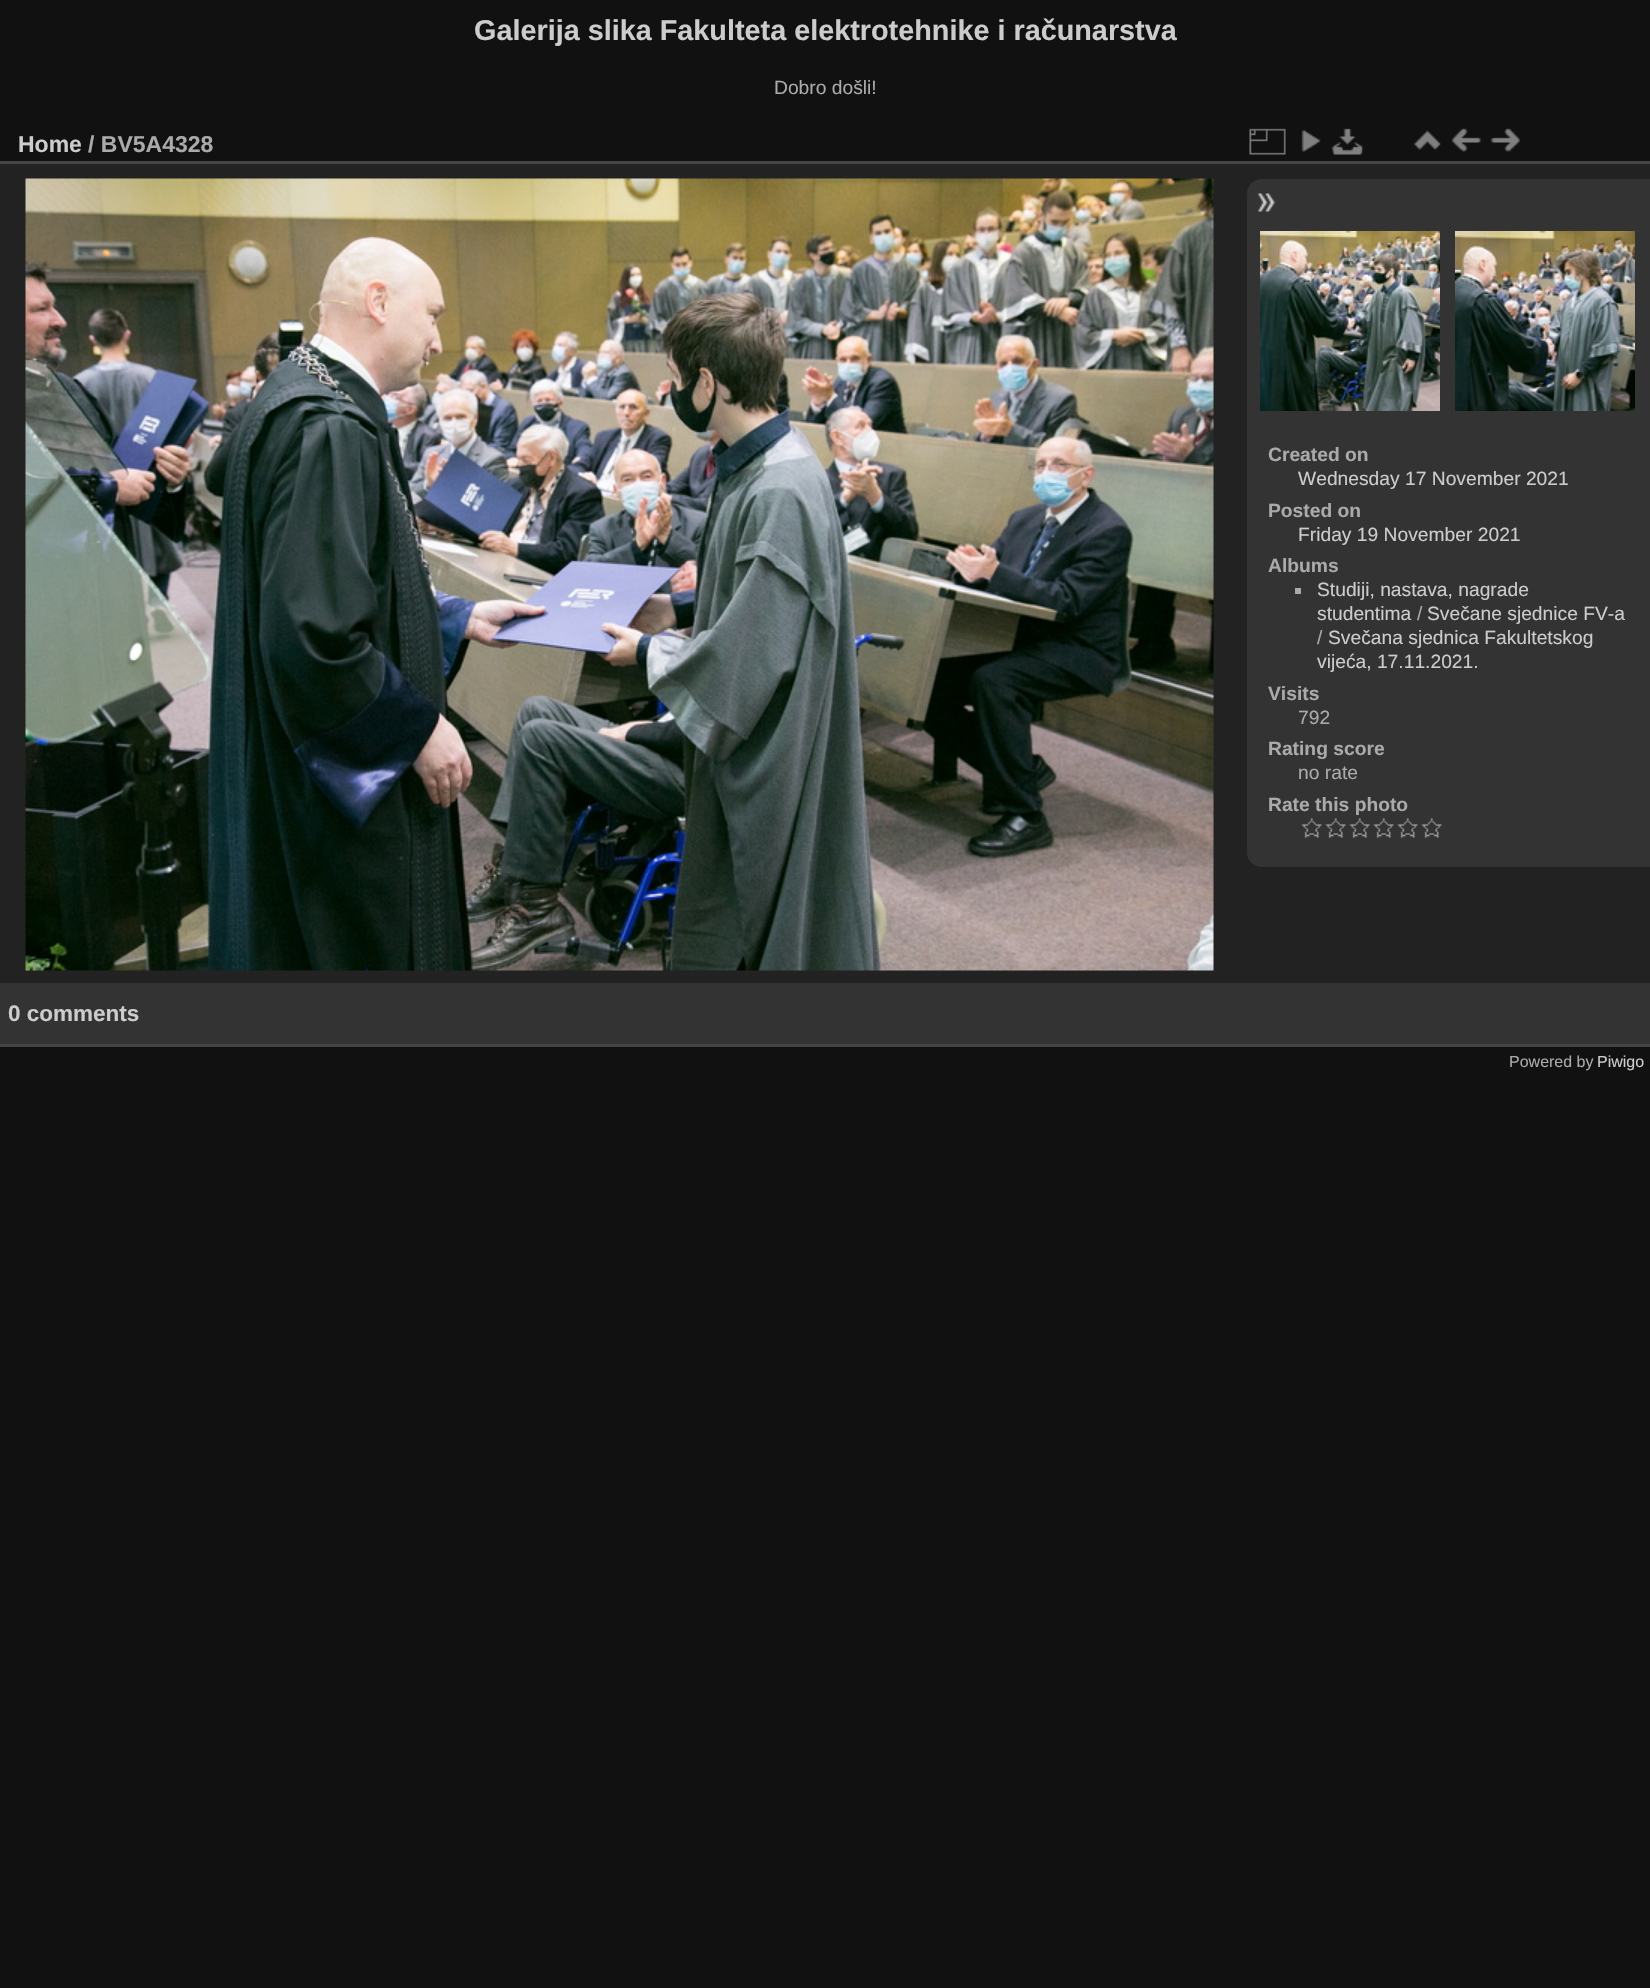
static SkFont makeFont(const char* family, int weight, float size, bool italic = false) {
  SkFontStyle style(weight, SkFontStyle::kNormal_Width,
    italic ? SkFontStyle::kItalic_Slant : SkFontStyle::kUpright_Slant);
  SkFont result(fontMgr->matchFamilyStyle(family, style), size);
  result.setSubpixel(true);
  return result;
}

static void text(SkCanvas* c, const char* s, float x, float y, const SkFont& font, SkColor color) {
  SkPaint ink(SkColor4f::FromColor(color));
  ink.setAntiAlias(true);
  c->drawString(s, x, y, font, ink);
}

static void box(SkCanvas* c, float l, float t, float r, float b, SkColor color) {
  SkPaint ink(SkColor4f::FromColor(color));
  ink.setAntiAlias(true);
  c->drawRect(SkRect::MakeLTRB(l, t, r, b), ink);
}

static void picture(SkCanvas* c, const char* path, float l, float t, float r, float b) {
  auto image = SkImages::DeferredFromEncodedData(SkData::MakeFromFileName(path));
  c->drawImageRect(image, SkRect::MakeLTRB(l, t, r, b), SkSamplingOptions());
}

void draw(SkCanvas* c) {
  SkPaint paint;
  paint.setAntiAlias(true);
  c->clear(0xff111111);
  SkFont face1 = makeFont("Liberation Sans", 700, 28.8f);
  text(c, "Galerija slika Fakulteta elektrotehnike i računarstva", 474, 40, face1, 0xffcccccc);
  SkFont face2 = makeFont("Liberation Sans", 400, 19.25f);
  text(c, "Dobro došli!", 774, 94, face2, 0xffaaaaaa);
  box(c, 0, 164, 1650, 983, 0xff222222);
  box(c, 0, 1044, 1650, 1047, 0xff444444);
  box(c, 0, 161, 1650, 164, 0xff444444);
  SkFont face3 = makeFont("Liberation Sans", 700, 23);
  text(c, "Home", 18, 152, face3, 0xffcccccc);
  text(c, "/ BV5A4328", 88, 152, face3, 0xffaaaaaa);
  picture(c, "img_01.png", 1249, 128, 1286, 155);
  picture(c, "img_02.png", 1301, 130, 1321, 152);
  picture(c, "img_03.png", 1331, 128, 1364, 155);
  picture(c, "img_04.png", 1414, 130, 1441, 151);
  picture(c, "img_05.png", 1451, 128, 1481, 152);
  picture(c, "img_06.png", 1490, 128, 1520, 152);
  picture(c, "img_07.png", 25, 178, 1214, 971);
  paint.setColor(0xff333333);
  c->drawPath(SkPathBuilder().moveTo(1262, 179).lineTo(1650, 179).lineTo(1650, 867).lineTo(1262, 867).cubicTo(1253.5f, 867, 1247, 860.5f, 1247, 852).lineTo(1247, 194).cubicTo(1247, 185.5f, 1253.5f, 179, 1262, 179).close().detach(), paint);
  picture(c, "img_08.png", 1257, 193, 1276, 212);
  picture(c, "img_09.png", 1260, 231, 1440, 411);
  picture(c, "img_10.png", 1455, 231, 1635, 411);
  SkFont face4 = makeFont("Liberation Sans", 700, 19.25f);
  text(c, "Created on", 1268, 461, face4, 0xffaaaaaa);
  text(c, "Wednesday 17 November 2021", 1298, 485, face2, 0xffcccccc);
  text(c, "Posted on", 1268, 517, face4, 0xffaaaaaa);
  text(c, "Friday 19 November 2021", 1298, 541, face2, 0xffcccccc);
  text(c, "Albums", 1268, 572, face4, 0xffaaaaaa);
  box(c, 1295, 588, 1301, 594, 0xffaaaaaa);
  text(c, "Studiji, nastava, nagrade", 1317, 596, face2, 0xffcccccc);
  text(c, "studentima", 1317, 620, face2, 0xffcccccc);
  text(c, "/", 1417, 620, face2, 0xffaaaaaa);
  text(c, "Svečane sjednice FV-a", 1427, 620, face2, 0xffcccccc);
  text(c, "/", 1317, 644, face2, 0xffaaaaaa);
  text(c, "Svečana sjednica Fakultetskog", 1328, 644, face2, 0xffcccccc);
  text(c, "vijeća, 17.11.2021.", 1317, 668, face2, 0xffcccccc);
  text(c, "Visits", 1268, 700, face4, 0xffaaaaaa);
  text(c, "792", 1298, 724, face2, 0xffaaaaaa);
  text(c, "Rating score", 1268, 755, face4, 0xffaaaaaa);
  text(c, "no rate", 1298, 779, face2, 0xffaaaaaa);
  text(c, "Rate this photo", 1268, 811, face4, 0xffaaaaaa);
  picture(c, "img_11.png", 1301, 818, 1322, 838);
  picture(c, "img_12.png", 1325, 818, 1346, 838);
  picture(c, "img_12.png", 1349, 818, 1370, 838);
  picture(c, "img_11.png", 1373, 818, 1394, 838);
  picture(c, "img_11.png", 1397, 818, 1418, 838);
  picture(c, "img_11.png", 1421, 818, 1442, 838);
  box(c, 0, 983, 1650, 1044, 0xff333333);
  SkFont face5 = makeFont("Liberation Sans", 700, 22.5f);
  text(c, "0 comments", 8, 1021, face5, 0xffcccccc);
  SkFont face6 = makeFont("Liberation Sans", 400, 16);
  text(c, "Powered by", 1509, 1067, face6, 0xffaaaaaa);
  text(c, "Piwigo", 1597, 1067, face6, 0xffcccccc);
}
